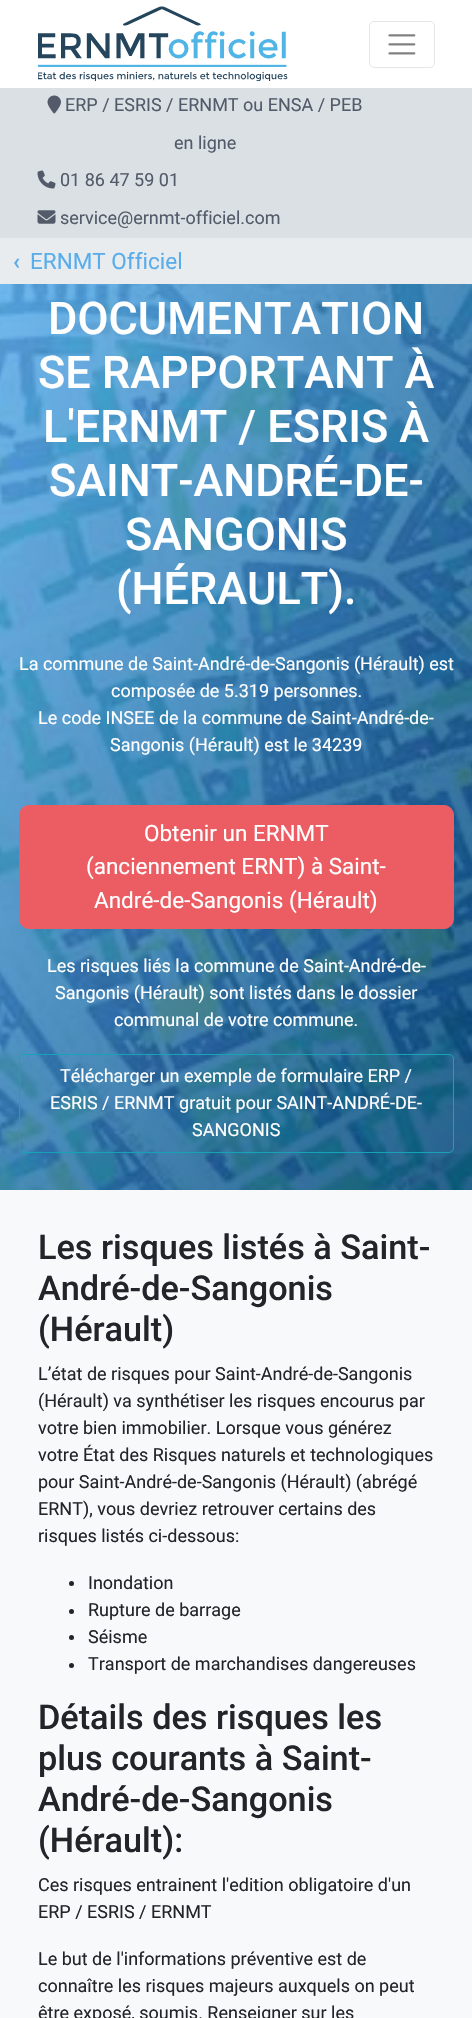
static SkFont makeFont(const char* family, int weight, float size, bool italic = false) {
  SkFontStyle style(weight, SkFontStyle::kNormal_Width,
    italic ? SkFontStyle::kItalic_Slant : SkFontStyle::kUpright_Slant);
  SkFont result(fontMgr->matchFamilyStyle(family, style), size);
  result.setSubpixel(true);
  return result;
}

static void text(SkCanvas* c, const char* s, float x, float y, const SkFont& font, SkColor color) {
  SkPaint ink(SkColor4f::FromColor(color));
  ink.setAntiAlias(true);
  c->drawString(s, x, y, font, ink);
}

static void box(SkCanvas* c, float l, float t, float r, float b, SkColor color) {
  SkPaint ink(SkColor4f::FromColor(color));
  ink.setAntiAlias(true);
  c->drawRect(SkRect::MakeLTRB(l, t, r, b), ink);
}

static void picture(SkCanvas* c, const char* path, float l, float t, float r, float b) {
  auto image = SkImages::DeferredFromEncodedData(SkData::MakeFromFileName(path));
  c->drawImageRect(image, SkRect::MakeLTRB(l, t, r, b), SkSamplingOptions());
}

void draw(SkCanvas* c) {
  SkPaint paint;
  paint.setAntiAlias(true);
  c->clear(0xffffffff);
  picture(c, "img_01.png", 38, 6, 288, 81);
  paint.setStyle(SkPaint::kStroke_Style);
  paint.setStrokeWidth(1);
  paint.setColor(0xffe6e6e6);
  c->drawRoundRect(SkRect::MakeLTRB(369.5f, 21.5f, 434.5f, 67.5f), 4.5f, 4.5f, paint);
  picture(c, "img_02.png", 388, 34, 416, 55);
  box(c, 0, 88, 472, 238, 0xffdae0e3);
  picture(c, "img_03.png", 47, 95, 61, 114);
  SkFont face1 = makeFont("Roboto", 400, 18);
  text(c, "ERP / ESRIS / ERNMT ou ENSA / PEB", 65, 111, face1, 0xff535a69);
  text(c, "en ligne", 174, 149, face1, 0xff535a69);
  picture(c, "img_04.png", 37, 170, 56, 189);
  text(c, "01 86 47 59 01", 60, 186, face1, 0xff535a69);
  picture(c, "img_05.png", 37, 210, 56, 224);
  text(c, "service@ernmt-officiel.com", 60, 224, face1, 0xff535a69);
  box(c, 0, 238, 472, 284, 0xffe9ecef);
  SkFont face2 = makeFont("Roboto", 700, 22.5f);
  text(c, "‹", 13, 269, face2, 0xff59adeb);
  SkFont face3 = makeFont("Roboto", 400, 22.5f);
  text(c, "ERNMT Officiel", 30, 269, face3, 0xff59adeb);
  paint.setStyle(SkPaint::kFill_Style);
  {
    const SkColor colors[] = {0xff59adeb, 0xff004678};
    const float stops[] = {0, 1};
    const SkPoint ends[] = {{-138, 537}, {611, 920}};
    paint.setShader(SkGradientShader::MakeLinear(ends, colors, stops, 2, SkTileMode::kClamp));
    paint.setAlpha(255);
  }
  c->drawRect(SkRect::MakeLTRB(0, 284, 472, 1190), paint);
  picture(c, "img_06.png", 0, 284, 472, 1190);
  SkFont face4 = makeFont("Roboto", 500, 45);
  text(c, "DOCUMENTATION", 48, 334, face4, 0xffffffff);
  text(c, "SE RAPPORTANT À", 38, 388, face4, 0xffffffff);
  text(c, "L'ERNMT / ESRIS À", 43, 442, face4, 0xffffffff);
  text(c, "SAINT-ANDRÉ-DE-", 49, 496, face4, 0xffffffff);
  text(c, "SANGONIS", 125, 550, face4, 0xffffffff);
  text(c, "(HÉRAULT).", 116, 604, face4, 0xffffffff);
  text(c, "La commune de Saint-André-de-Sangonis (Hérault) est", 19, 670, face1, 0xffffffff);
  text(c, "composée de 5.319 personnes.", 111, 697, face1, 0xffffffff);
  text(c, "Le code INSEE de la commune de Saint-André-de-", 38, 724, face1, 0xffffffff);
  text(c, "Sangonis (Hérault) est le 34239", 110, 751, face1, 0xffffffff);
  paint.setShader(nullptr);
  paint.setColor(0xffec5d63);
  c->drawRoundRect(SkRect::MakeLTRB(19.5f, 805.5f, 453.5f, 928.5f), 9.5f, 9.5f, paint);
  paint.setStyle(SkPaint::kStroke_Style);
  c->drawRoundRect(SkRect::MakeLTRB(19.5f, 805.5f, 453.5f, 928.5f), 9.5f, 9.5f, paint);
  text(c, "Obtenir un ERNMT", 144, 841, face3, 0xffffffff);
  text(c, "(anciennement ERNT) à Saint-", 86, 874, face3, 0xffffffff);
  text(c, "André-de-Sangonis (Hérault)", 94, 908, face3, 0xffffffff);
  text(c, "Les risques liés la commune de Saint-André-de-", 47, 972, face1, 0xffffffff);
  text(c, "Sangonis (Hérault) sont listés dans le dossier", 55, 999, face1, 0xffffffff);
  text(c, "communal de votre commune.", 114, 1026, face1, 0xffffffff);
  paint.setColor(0xff17a2b8);
  c->drawRoundRect(SkRect::MakeLTRB(19.5f, 1054.5f, 453.5f, 1152.5f), 4.5f, 4.5f, paint);
  text(c, "Télécharger un exemple de formulaire ERP /", 60, 1082, face1, 0xffffffff);
  text(c, "ESRIS / ERNMT gratuit pour SAINT-ANDRÉ-DE-", 50, 1109, face1, 0xffffffff);
  text(c, "SANGONIS", 192, 1136, face1, 0xffffffff);
  box(c, 0, 1190, 472, 2018, 0xfff8f9fa);
  SkFont face5 = makeFont("Roboto", 500, 34.25f);
  text(c, "Les risques listés à Saint-", 38, 1259, face5, 0xff212529);
  text(c, "André-de-Sangonis", 38, 1300, face5, 0xff212529);
  text(c, "(Hérault)", 38, 1341, face5, 0xff212529);
  text(c, "L’état de risques pour Saint-André-de-Sangonis", 38, 1380, face1, 0xff212529);
  text(c, "(Hérault) va synthétiser les risques encourus par", 38, 1407, face1, 0xff212529);
  text(c, "votre bien immobilier. Lorsque vous générez", 38, 1434, face1, 0xff212529);
  text(c, "votre État des Risques naturels et technologiques", 38, 1461, face1, 0xff212529);
  text(c, "pour Saint-André-de-Sangonis (Hérault) (abrégé", 38, 1488, face1, 0xff212529);
  text(c, "ERNT), vous devriez retrouver certains des", 38, 1515, face1, 0xff212529);
  text(c, "risques listés ci-dessous:", 38, 1542, face1, 0xff212529);
  paint.setStyle(SkPaint::kFill_Style);
  paint.setColor(0xff212529);
  c->drawCircle(71.5f, 1583.5f, 2.5f, paint);
  text(c, "Inondation", 88, 1589, face1, 0xff212529);
  c->drawCircle(71.5f, 1611.5f, 2.5f, paint);
  text(c, "Rupture de barrage", 88, 1616, face1, 0xff212529);
  c->drawCircle(71.5f, 1637.5f, 2.5f, paint);
  text(c, "Séisme", 88, 1643, face1, 0xff212529);
  c->drawCircle(71.5f, 1665.5f, 2.5f, paint);
  text(c, "Transport de marchandises dangereuses", 88, 1670, face1, 0xff212529);
  text(c, "Détails des risques les", 38, 1729, face5, 0xff212529);
  text(c, "plus courants à Saint-", 38, 1770, face5, 0xff212529);
  text(c, "André-de-Sangonis", 38, 1811, face5, 0xff212529);
  text(c, "(Hérault):", 38, 1852, face5, 0xff212529);
  text(c, "Ces risques entrainent l'edition obligatoire d'un", 38, 1891, face1, 0xff212529);
  text(c, "ERP / ESRIS / ERNMT", 38, 1918, face1, 0xff212529);
  text(c, "Le but de l'informations préventive est de", 38, 1965, face1, 0xff212529);
  text(c, "connaître les risques majeurs auxquels on peut", 38, 1992, face1, 0xff212529);
  text(c, "être exposé, soumis. Renseigner sur les", 38, 2019, face1, 0xff212529);
}
